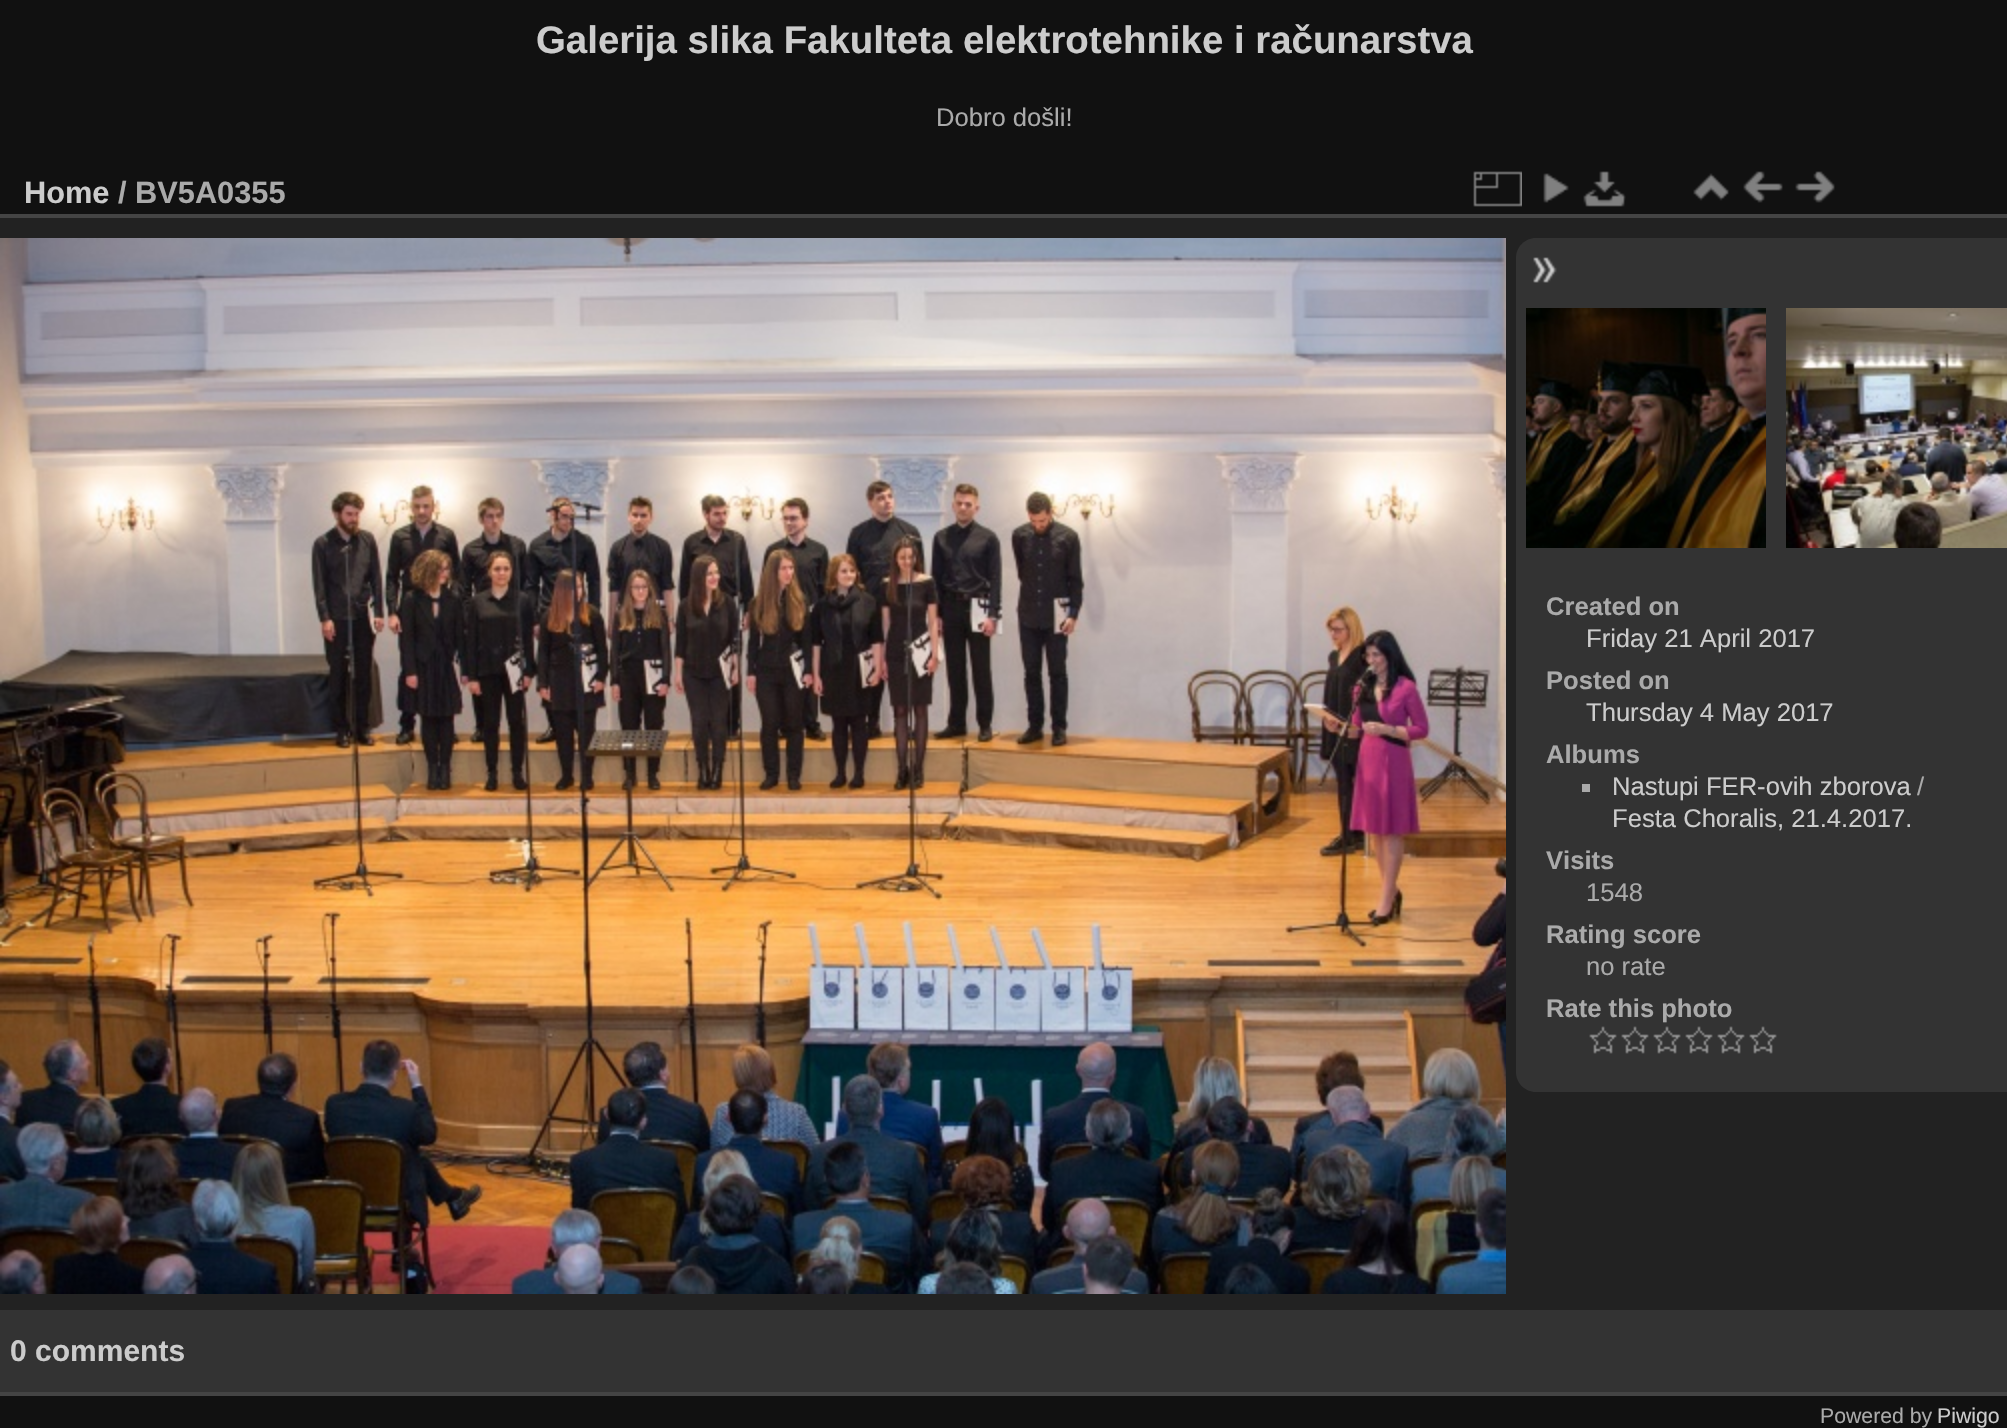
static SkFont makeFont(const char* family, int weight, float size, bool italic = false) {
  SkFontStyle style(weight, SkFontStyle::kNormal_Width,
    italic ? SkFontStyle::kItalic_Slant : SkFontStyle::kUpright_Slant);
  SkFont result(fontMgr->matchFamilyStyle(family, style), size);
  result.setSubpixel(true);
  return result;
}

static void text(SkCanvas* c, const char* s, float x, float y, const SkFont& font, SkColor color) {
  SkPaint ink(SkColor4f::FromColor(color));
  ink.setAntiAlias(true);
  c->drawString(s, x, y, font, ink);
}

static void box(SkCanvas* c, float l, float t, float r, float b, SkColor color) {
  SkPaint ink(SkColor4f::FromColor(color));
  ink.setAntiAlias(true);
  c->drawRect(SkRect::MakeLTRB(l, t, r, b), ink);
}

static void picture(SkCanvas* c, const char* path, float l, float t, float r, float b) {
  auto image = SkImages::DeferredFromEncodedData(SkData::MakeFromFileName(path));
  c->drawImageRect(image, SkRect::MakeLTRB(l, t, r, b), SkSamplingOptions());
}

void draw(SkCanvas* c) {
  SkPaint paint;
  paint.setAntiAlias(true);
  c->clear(0xff111111);
  SkFont face1 = makeFont("Liberation Sans", 700, 38.4f);
  text(c, "Galerija slika Fakulteta elektrotehnike i računarstva", 536, 53, face1, 0xffcccccc);
  SkFont face2 = makeFont("Liberation Sans", 400, 25.6f);
  text(c, "Dobro došli!", 936, 126, face2, 0xffaaaaaa);
  box(c, 0, 218, 2007, 1310, 0xff222222);
  box(c, 0, 1392, 2007, 1396, 0xff444444);
  box(c, 0, 214, 2007, 218, 0xff444444);
  SkFont face3 = makeFont("Liberation Sans", 700, 30.75f);
  text(c, "Home", 24, 203, face3, 0xffcccccc);
  text(c, "/ BV5A0355", 118, 203, face3, 0xffaaaaaa);
  picture(c, "img_01.png", 1473, 171, 1522, 207);
  picture(c, "img_02.png", 1543, 173, 1569, 203);
  picture(c, "img_03.png", 1583, 171, 1626, 207);
  picture(c, "img_04.png", 1693, 173, 1729, 201);
  picture(c, "img_05.png", 1743, 171, 1783, 203);
  picture(c, "img_06.png", 1795, 171, 1835, 203);
  picture(c, "img_07.png", 0, 238, 1506, 1294);
  paint.setColor(0xff333333);
  c->drawPath(SkPathBuilder().moveTo(1536, 238).lineTo(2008, 238).lineTo(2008, 1092).lineTo(1536, 1092).cubicTo(1525, 1092, 1516, 1083, 1516, 1072).lineTo(1516, 258).cubicTo(1516, 247, 1525, 238, 1536, 238).close().detach(), paint);
  picture(c, "img_08.png", 1533, 257, 1557, 283);
  picture(c, "img_09.png", 1526, 308, 1766, 548);
  picture(c, "img_10.png", 1786, 308, 2007, 548);
  SkFont face4 = makeFont("Liberation Sans", 700, 25.6f);
  text(c, "Created on", 1546, 615, face4, 0xffaaaaaa);
  text(c, "Friday 21 April 2017", 1586, 647, face2, 0xffcccccc);
  text(c, "Posted on", 1546, 689, face4, 0xffaaaaaa);
  text(c, "Thursday 4 May 2017", 1586, 721, face2, 0xffcccccc);
  text(c, "Albums", 1546, 763, face4, 0xffaaaaaa);
  box(c, 1582, 784, 1590, 792, 0xffaaaaaa);
  text(c, "Nastupi FER-ovih zborova", 1612, 795, face2, 0xffcccccc);
  text(c, "/", 1917, 795, face2, 0xffaaaaaa);
  text(c, "Festa Choralis, 21.4.2017.", 1612, 827, face2, 0xffcccccc);
  text(c, "Visits", 1546, 869, face4, 0xffaaaaaa);
  text(c, "1548", 1586, 901, face2, 0xffaaaaaa);
  text(c, "Rating score", 1546, 943, face4, 0xffaaaaaa);
  text(c, "no rate", 1586, 975, face2, 0xffaaaaaa);
  text(c, "Rate this photo", 1546, 1017, face4, 0xffaaaaaa);
  picture(c, "img_11.png", 1589, 1026, 1617, 1054);
  picture(c, "img_11.png", 1621, 1026, 1649, 1054);
  picture(c, "img_11.png", 1653, 1026, 1681, 1054);
  picture(c, "img_11.png", 1685, 1026, 1713, 1054);
  picture(c, "img_11.png", 1717, 1026, 1745, 1054);
  picture(c, "img_11.png", 1749, 1026, 1777, 1054);
  box(c, 0, 1310, 2007, 1392, 0xff333333);
  SkFont face5 = makeFont("Liberation Sans", 700, 30);
  text(c, "0 comments", 10, 1361, face5, 0xffcccccc);
  SkFont face6 = makeFont("Liberation Sans", 400, 21.25f);
  text(c, "Powered by", 1820, 1423, face6, 0xffaaaaaa);
  text(c, "Piwigo", 1937, 1423, face6, 0xffcccccc);
}
